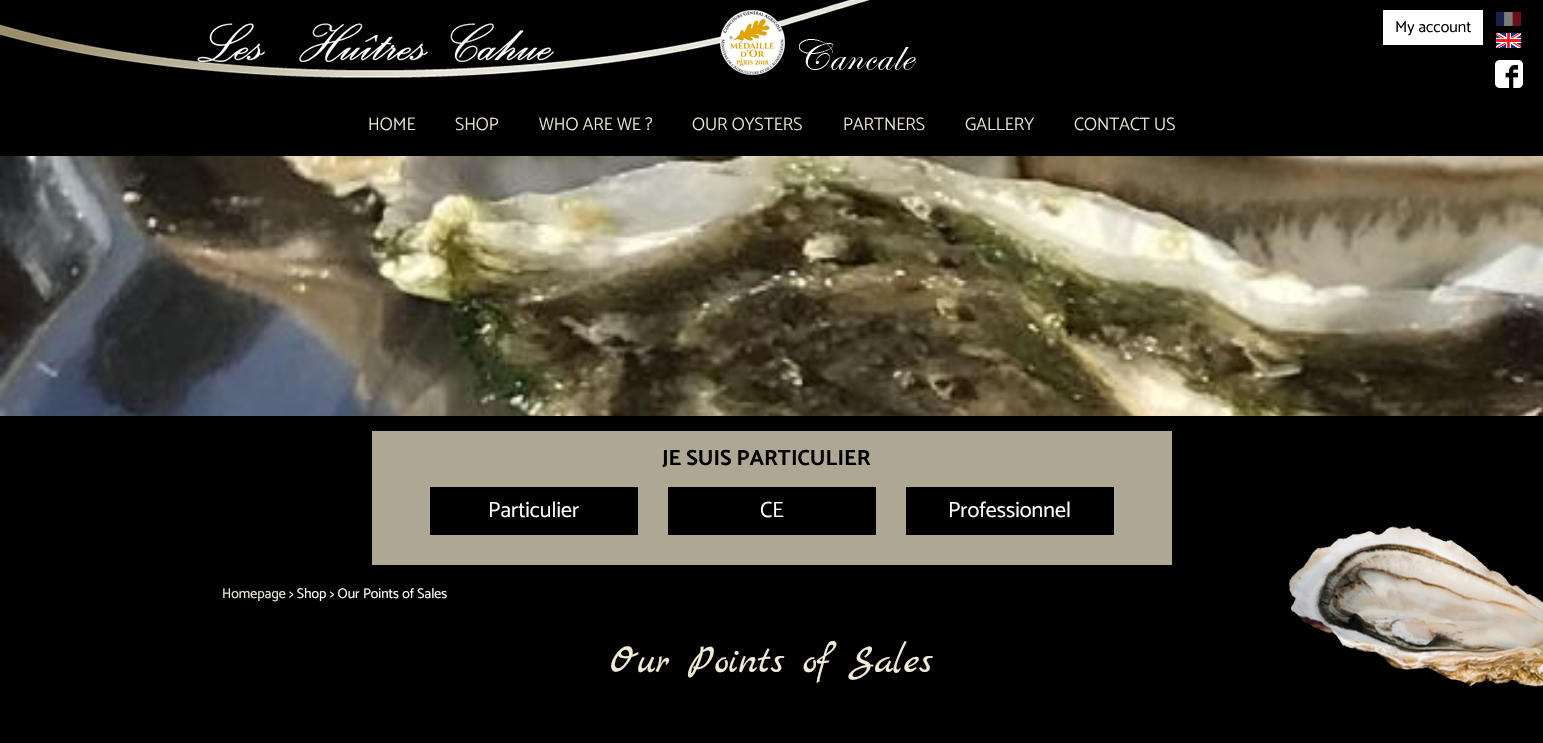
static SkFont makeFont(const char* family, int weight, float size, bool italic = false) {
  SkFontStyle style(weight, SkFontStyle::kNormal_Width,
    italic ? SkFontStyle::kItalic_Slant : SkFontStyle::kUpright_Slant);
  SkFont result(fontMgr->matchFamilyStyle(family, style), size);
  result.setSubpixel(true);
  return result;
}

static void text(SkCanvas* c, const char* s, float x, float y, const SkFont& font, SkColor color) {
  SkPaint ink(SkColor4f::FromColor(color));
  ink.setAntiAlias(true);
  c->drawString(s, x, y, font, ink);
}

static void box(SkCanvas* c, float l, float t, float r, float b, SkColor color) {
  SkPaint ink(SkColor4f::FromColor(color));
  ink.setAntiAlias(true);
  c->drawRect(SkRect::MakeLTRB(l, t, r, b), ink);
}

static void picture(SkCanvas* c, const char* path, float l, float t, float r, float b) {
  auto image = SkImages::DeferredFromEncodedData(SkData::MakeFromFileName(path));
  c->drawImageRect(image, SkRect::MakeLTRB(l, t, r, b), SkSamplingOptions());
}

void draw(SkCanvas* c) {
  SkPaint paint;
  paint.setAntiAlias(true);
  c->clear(0xff000000);
  picture(c, "img_01.png", 0, 0, 871, 78);
  picture(c, "img_02.png", 720, 10, 916, 75);
  box(c, 1383, 10, 1483, 45, 0xffffffff);
  SkFont face1 = makeFont("Catamaran", 400, 16);
  text(c, "My account", 1395, 32, face1, 0xff000000);
  picture(c, "img_03.png", 1496, 12, 1521, 26);
  picture(c, "img_04.png", 1496, 33, 1521, 48);
  picture(c, "img_05.png", 1495, 60, 1523, 88);
  SkFont face2 = makeFont("Catamaran", 300, 18);
  text(c, "HOME", 368, 130, face2, 0xfff1ebd7);
  text(c, "SHOP", 455, 130, face2, 0xfff1ebd7);
  text(c, "WHO ARE WE ?", 539, 130, face2, 0xfff1ebd7);
  text(c, "OUR OYSTERS", 692, 130, face2, 0xfff1ebd7);
  text(c, "PARTNERS", 843, 130, face2, 0xfff1ebd7);
  text(c, "GALLERY", 965, 130, face2, 0xfff1ebd7);
  text(c, "CONTACT US", 1074, 130, face2, 0xfff1ebd7);
  picture(c, "img_06.png", 0, 156, 1543, 416);
  box(c, 372, 431, 1172, 565, 0xffada794);
  SkFont face3 = makeFont("Catamaran", 700, 22);
  text(c, "JE SUIS PARTICULIER", 662, 465, face3, 0xff000000);
  box(c, 430, 487, 638, 535, 0xff000000);
  SkFont face4 = makeFont("Catamaran", 400, 22);
  text(c, "Particulier", 488, 517, face4, 0xffffffff);
  box(c, 668, 487, 876, 535, 0xff000000);
  text(c, "CE", 760, 517, face4, 0xffffffff);
  box(c, 906, 487, 1114, 535, 0xff000000);
  text(c, "Professionnel", 948, 517, face4, 0xffffffff);
  SkFont face5 = makeFont("Catamaran", 400, 14);
  text(c, "Homepage", 222, 598, face5, 0xfff1ebd7);
  text(c, "> Shop > Our Points of Sales", 289, 598, face5, 0xffffffff);
  SkFont face6 = makeFont("Marck Script", 400, 40);
  text(c, "Our Points of Sales", 610, 672, face6, 0xfff1ebd7);
  picture(c, "img_07.png", 1289, 526, 1543, 688);
}
